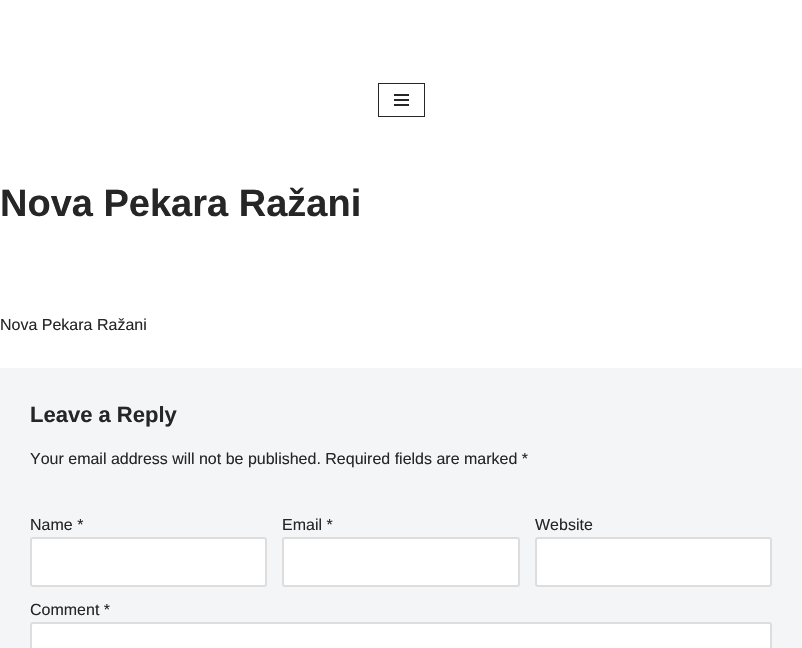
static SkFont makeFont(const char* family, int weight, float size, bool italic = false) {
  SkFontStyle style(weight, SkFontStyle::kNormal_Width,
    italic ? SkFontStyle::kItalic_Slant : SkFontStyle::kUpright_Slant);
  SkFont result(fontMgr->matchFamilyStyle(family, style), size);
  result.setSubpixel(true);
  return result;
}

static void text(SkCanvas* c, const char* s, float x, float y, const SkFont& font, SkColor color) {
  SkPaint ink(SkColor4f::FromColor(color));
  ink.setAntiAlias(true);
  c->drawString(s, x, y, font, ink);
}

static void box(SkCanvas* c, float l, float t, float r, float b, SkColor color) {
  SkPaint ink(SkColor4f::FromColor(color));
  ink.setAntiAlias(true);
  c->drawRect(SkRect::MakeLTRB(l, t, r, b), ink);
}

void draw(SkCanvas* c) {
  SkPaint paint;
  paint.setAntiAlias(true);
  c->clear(0xffffffff);
  paint.setStyle(SkPaint::kStroke_Style);
  paint.setStrokeWidth(1);
  paint.setColor(0xff272626);
  c->drawRect(SkRect::MakeLTRB(378.5f, 83.5f, 424.5f, 116.5f), paint);
  box(c, 394, 94, 409, 96, 0xff272626);
  box(c, 394, 99, 409, 101, 0xff272626);
  box(c, 394, 104, 409, 106, 0xff272626);
  SkFont face1 = makeFont("Liberation Sans", 700, 38);
  text(c, "Nova Pekara Ražani", 0, 216, face1, 0xff272626);
  SkFont face2 = makeFont("Liberation Sans", 400, 16);
  text(c, "Nova Pekara Ražani", 0, 330, face2, 0xff272626);
  box(c, 0, 368, 802, 648, 0xfff4f5f7);
  SkFont face3 = makeFont("Liberation Sans", 700, 22);
  text(c, "Leave a Reply", 30, 422, face3, 0xff272626);
  text(c, "Your email address will not be published. Required fields are marked *", 30, 464, face2, 0xff272626);
  text(c, "Name *", 30, 530, face2, 0xff272626);
  paint.setStyle(SkPaint::kFill_Style);
  paint.setColor(0xffffffff);
  c->drawRoundRect(SkRect::MakeLTRB(31, 538, 266, 586), 2, 2, paint);
  paint.setStyle(SkPaint::kStroke_Style);
  paint.setStrokeWidth(2);
  paint.setColor(0xffdddddd);
  c->drawRoundRect(SkRect::MakeLTRB(31, 538, 266, 586), 2, 2, paint);
  text(c, "Email *", 282, 530, face2, 0xff272626);
  paint.setStyle(SkPaint::kFill_Style);
  paint.setColor(0xffffffff);
  c->drawRoundRect(SkRect::MakeLTRB(283, 538, 519, 586), 2, 2, paint);
  paint.setStyle(SkPaint::kStroke_Style);
  paint.setColor(0xffdddddd);
  c->drawRoundRect(SkRect::MakeLTRB(283, 538, 519, 586), 2, 2, paint);
  text(c, "Website", 535, 530, face2, 0xff272626);
  paint.setStyle(SkPaint::kFill_Style);
  paint.setColor(0xffffffff);
  c->drawRoundRect(SkRect::MakeLTRB(536, 538, 771, 586), 2, 2, paint);
  paint.setStyle(SkPaint::kStroke_Style);
  paint.setColor(0xffdddddd);
  c->drawRoundRect(SkRect::MakeLTRB(536, 538, 771, 586), 2, 2, paint);
  text(c, "Comment *", 30, 615, face2, 0xff272626);
  paint.setStyle(SkPaint::kFill_Style);
  paint.setColor(0xffffffff);
  c->drawRoundRect(SkRect::MakeLTRB(31, 623, 771, 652), 2, 2, paint);
  paint.setStyle(SkPaint::kStroke_Style);
  paint.setColor(0xffdddddd);
  c->drawRoundRect(SkRect::MakeLTRB(31, 623, 771, 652), 2, 2, paint);
}
